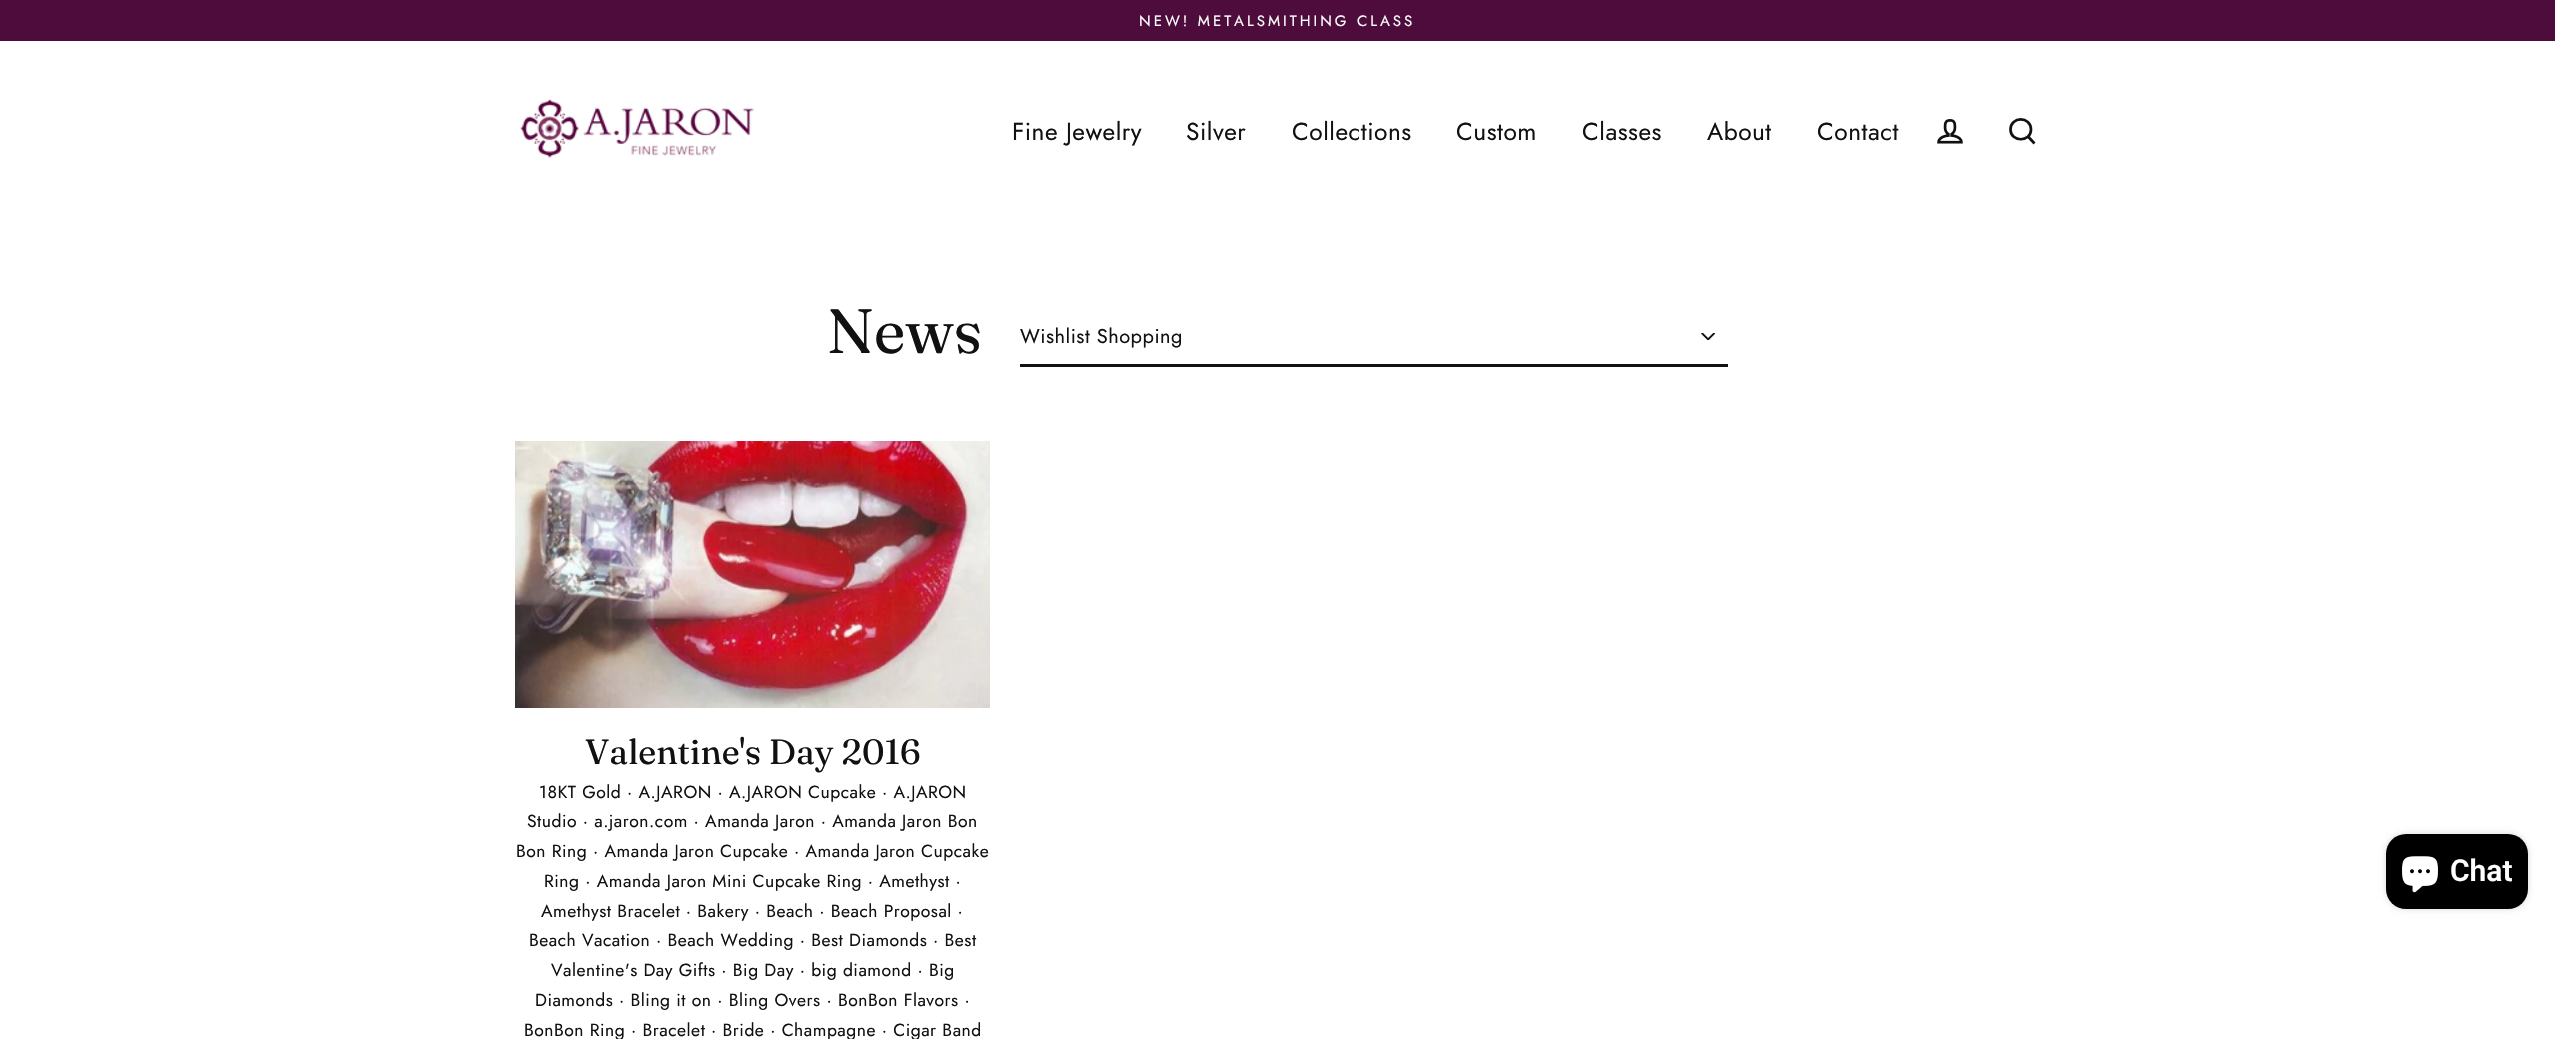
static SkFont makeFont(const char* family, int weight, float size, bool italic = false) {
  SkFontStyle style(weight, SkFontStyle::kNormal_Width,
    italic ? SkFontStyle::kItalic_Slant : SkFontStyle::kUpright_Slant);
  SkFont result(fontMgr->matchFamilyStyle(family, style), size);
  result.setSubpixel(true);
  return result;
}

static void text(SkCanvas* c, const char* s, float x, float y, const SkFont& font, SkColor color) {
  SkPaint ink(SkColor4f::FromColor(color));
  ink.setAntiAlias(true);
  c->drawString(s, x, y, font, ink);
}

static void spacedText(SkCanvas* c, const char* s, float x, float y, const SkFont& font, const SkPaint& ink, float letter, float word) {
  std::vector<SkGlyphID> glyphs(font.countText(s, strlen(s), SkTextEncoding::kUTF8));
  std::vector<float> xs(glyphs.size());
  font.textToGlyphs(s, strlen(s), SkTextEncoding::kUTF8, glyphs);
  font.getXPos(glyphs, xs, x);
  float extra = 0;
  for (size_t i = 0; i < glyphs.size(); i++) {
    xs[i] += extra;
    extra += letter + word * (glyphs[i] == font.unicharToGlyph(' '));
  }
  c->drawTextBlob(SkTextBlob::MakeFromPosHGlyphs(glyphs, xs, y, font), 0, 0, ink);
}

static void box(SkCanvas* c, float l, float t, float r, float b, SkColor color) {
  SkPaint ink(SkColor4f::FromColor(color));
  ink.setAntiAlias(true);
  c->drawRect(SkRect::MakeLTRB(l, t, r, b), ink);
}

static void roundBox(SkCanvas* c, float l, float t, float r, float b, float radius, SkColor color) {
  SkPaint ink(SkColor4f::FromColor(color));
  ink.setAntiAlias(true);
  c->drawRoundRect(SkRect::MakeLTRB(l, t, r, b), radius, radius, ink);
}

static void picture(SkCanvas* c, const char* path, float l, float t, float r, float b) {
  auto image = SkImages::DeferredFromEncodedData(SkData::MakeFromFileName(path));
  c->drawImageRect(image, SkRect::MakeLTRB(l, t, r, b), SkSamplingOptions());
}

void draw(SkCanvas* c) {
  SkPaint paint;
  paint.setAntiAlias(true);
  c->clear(0xffffffff);
  box(c, 0, 0, 2555, 41, 0xff4d0c3b);
  SkFont face1 = makeFont("Jost", 400, 15);
  paint.setColor(0xffffffff);
  spacedText(c, "NEW! METALSMITHING CLASS", 1139, 26, face1, paint, 3, 0);
  picture(c, "img_01.png", 520, 99, 754, 158);
  SkFont face2 = makeFont("Jost", 400, 24.5f);
  paint.setColor(0xff111111);
  spacedText(c, "Fine Jewelry", 1012, 140, face2, paint, 0.5f, 0);
  spacedText(c, "Silver", 1186, 140, face2, paint, 0.5f, 0);
  spacedText(c, "Collections", 1292, 140, face2, paint, 0.5f, 0);
  spacedText(c, "Custom", 1456, 140, face2, paint, 0.5f, 0);
  spacedText(c, "Classes", 1582, 140, face2, paint, 0.5f, 0);
  spacedText(c, "About", 1707, 140, face2, paint, 0.5f, 0);
  spacedText(c, "Contact", 1817, 140, face2, paint, 0.5f, 0);
  picture(c, "img_02.png", 1937, 119, 1963, 144);
  paint.setStyle(SkPaint::kStroke_Style);
  paint.setStrokeWidth(2.7f);
  c->drawPath(SkPathBuilder().moveTo(2031, 129.5f).cubicTo(2031, 142.5f, 2010.5f, 142.5f, 2010.5f, 129.5f).cubicTo(2010.5f, 116, 2031, 116, 2031, 129.5f).close().moveTo(2034.5f, 143.5f).lineTo(2028, 136.5f).detach(), paint);
  SkFont face3 = makeFont("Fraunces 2", 400, 62.5f);
  text(c, "News", 827, 353, face3, 0xff111111);
  picture(c, "img_03.png", 1701, 333, 1715, 340);
  box(c, 1020, 364, 1728, 367, 0xff111111);
  SkFont face4 = makeFont("Jost", 400, 20);
  paint.setStyle(SkPaint::kFill_Style);
  spacedText(c, "Wishlist Shopping", 1020, 343, face4, paint, 0.5f, 0);
  picture(c, "img_04.png", 515, 441, 990, 708);
  SkFont face5 = makeFont("Fraunces", 400, 35);
  text(c, "Valentine's Day 2016", 585, 764, face5, 0xff111111);
  SkFont face6 = makeFont("Jost", 400, 17.5f);
  spacedText(c, "18KT Gold · A.JARON · A.JARON Cupcake · A.JARON", 539, 798, face6, paint, 0.5f, 0);
  spacedText(c, "Studio · a.jaron.com · Amanda Jaron · Amanda Jaron Bon", 527, 827, face6, paint, 0.5f, 0);
  spacedText(c, "Bon Ring · Amanda Jaron Cupcake · Amanda Jaron Cupcake", 516, 857, face6, paint, 0.5f, 0);
  spacedText(c, "Ring · Amanda Jaron Mini Cupcake Ring · Amethyst ·", 544, 887, face6, paint, 0.5f, 0);
  spacedText(c, "Amethyst Bracelet · Bakery · Beach · Beach Proposal ·", 541, 917, face6, paint, 0.5f, 0);
  spacedText(c, "Beach Vacation · Beach Wedding · Best Diamonds · Best", 529, 946, face6, paint, 0.5f, 0);
  spacedText(c, "Valentine's Day Gifts · Big Day · big diamond · Big", 551, 976, face6, paint, 0.5f, 0);
  spacedText(c, "Diamonds · Bling it on · Bling Overs · BonBon Flavors ·", 535, 1006, face6, paint, 0.5f, 0);
  spacedText(c, "BonBon Ring · Bracelet · Bride · Champagne · Cigar Band", 524, 1036, face6, paint, 0.5f, 0);
  paint.setColor(0x26000000);
  paint.setMaskFilter(SkMaskFilter::MakeBlur(kNormal_SkBlurStyle, 3));
  c->drawRoundRect(SkRect::MakeLTRB(2386, 834, 2528, 909), 20, 20, paint);
  paint.setMaskFilter(nullptr);
  roundBox(c, 2386, 834, 2528, 909, 20, 0xff000000);
  picture(c, "img_05.png", 2402, 856, 2438, 893);
  SkFont face7 = makeFont("Roboto", 600, 30);
  text(c, "Chat", 2450, 881, face7, 0xffffffff);
}
